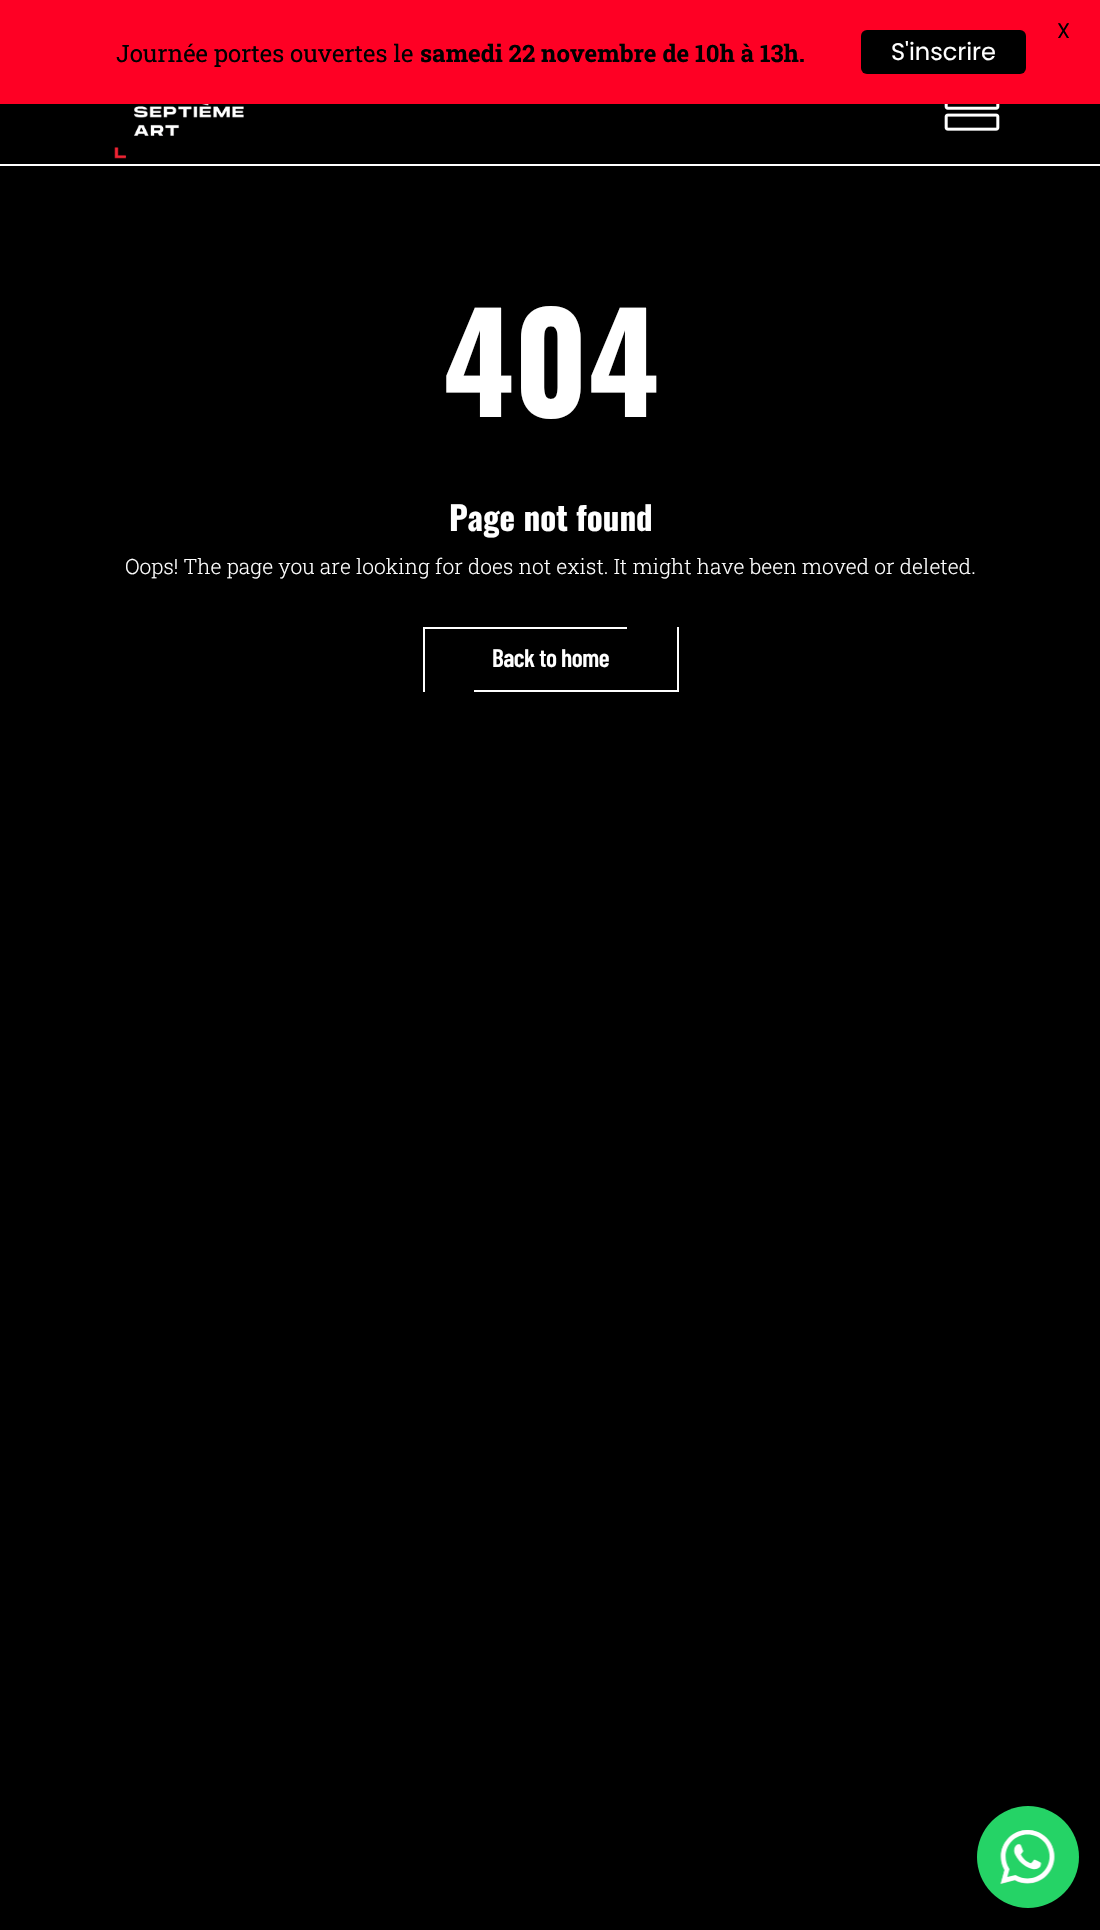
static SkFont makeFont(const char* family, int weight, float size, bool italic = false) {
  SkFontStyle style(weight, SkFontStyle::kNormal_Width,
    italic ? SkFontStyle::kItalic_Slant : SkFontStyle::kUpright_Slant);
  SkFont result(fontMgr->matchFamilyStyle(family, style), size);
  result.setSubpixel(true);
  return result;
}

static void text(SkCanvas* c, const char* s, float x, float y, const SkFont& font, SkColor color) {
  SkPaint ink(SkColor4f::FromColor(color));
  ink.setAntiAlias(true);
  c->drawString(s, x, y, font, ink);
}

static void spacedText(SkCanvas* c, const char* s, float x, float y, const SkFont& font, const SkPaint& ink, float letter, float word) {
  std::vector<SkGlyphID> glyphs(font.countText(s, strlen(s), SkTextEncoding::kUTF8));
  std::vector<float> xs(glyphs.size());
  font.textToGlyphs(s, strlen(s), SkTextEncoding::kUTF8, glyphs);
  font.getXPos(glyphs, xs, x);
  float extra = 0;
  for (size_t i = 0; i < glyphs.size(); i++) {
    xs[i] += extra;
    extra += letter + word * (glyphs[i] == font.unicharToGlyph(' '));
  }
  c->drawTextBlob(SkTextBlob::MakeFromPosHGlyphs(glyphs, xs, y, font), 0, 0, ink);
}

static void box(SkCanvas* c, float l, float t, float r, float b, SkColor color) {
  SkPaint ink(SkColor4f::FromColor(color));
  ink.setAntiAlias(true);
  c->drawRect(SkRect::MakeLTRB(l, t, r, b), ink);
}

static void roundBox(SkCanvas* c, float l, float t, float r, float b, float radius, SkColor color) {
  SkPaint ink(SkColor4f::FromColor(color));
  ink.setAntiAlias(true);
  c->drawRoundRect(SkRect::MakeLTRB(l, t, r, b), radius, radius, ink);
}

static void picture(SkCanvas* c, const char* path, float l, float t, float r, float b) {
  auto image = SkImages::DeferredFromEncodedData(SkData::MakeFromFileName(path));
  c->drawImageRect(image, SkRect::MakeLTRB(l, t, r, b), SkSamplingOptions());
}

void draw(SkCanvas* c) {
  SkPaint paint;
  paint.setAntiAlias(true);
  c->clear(0xff000000);
  box(c, 0, 0, 1100, 104, 0xfffe0024);
  SkFont face1 = makeFont("Poppins", 400, 21);
  text(c, "X", 1057, 38, face1, 0xff000000);
  SkFont face2 = makeFont("Roboto Slab", 400, 24);
  text(c, "Journée portes ouvertes le", 116, 62, face2, 0xff000000);
  SkFont face3 = makeFont("Roboto Slab", 700, 24);
  text(c, "samedi 22 novembre de 10h à 13h.", 420, 62, face3, 0xff000000);
  roundBox(c, 861, 30, 1026, 74, 6, 0xff000000);
  SkFont face4 = makeFont("Poppins", 400, 24);
  text(c, "S'inscrire", 891, 60, face4, 0xffffffff);
  box(c, 0, 164, 1100, 166, 0xffffffff);
  picture(c, "img_01.png", 114, 104, 244, 159);
  picture(c, "img_02.png", 944, 104, 1000, 131);
  SkFont face5 = makeFont("Oswald", 700, 135);
  text(c, "404", 443, 417, face5, 0xffffffff);
  SkFont face6 = makeFont("Oswald", 700, 33);
  text(c, "Page not found", 449, 531, face6, 0xffffffff);
  SkFont face7 = makeFont("Roboto Slab", 300, 21);
  text(c, "Oops! The page you are looking for does not exist. It might have been moved or deleted.", 125, 574, face7, 0xffffffff);
  box(c, 423, 627, 425, 692, 0xffffffff);
  box(c, 423, 627, 627, 629, 0xffffffff);
  box(c, 677, 627, 679, 692, 0xffffffff);
  SkFont face8 = makeFont("Barlow Condensed", 600, 25.5f);
  paint.setColor(0xffffffff);
  spacedText(c, "Back to home", 492, 667, face8, paint, -0.5f, 0);
  box(c, 474, 690, 678, 692, 0xffffffff);
  paint.setColor(0xff25d366);
  c->drawCircle(1028, 1857, 51, paint);
  picture(c, "img_03.png", 1000, 1830, 1055, 1884);
}
